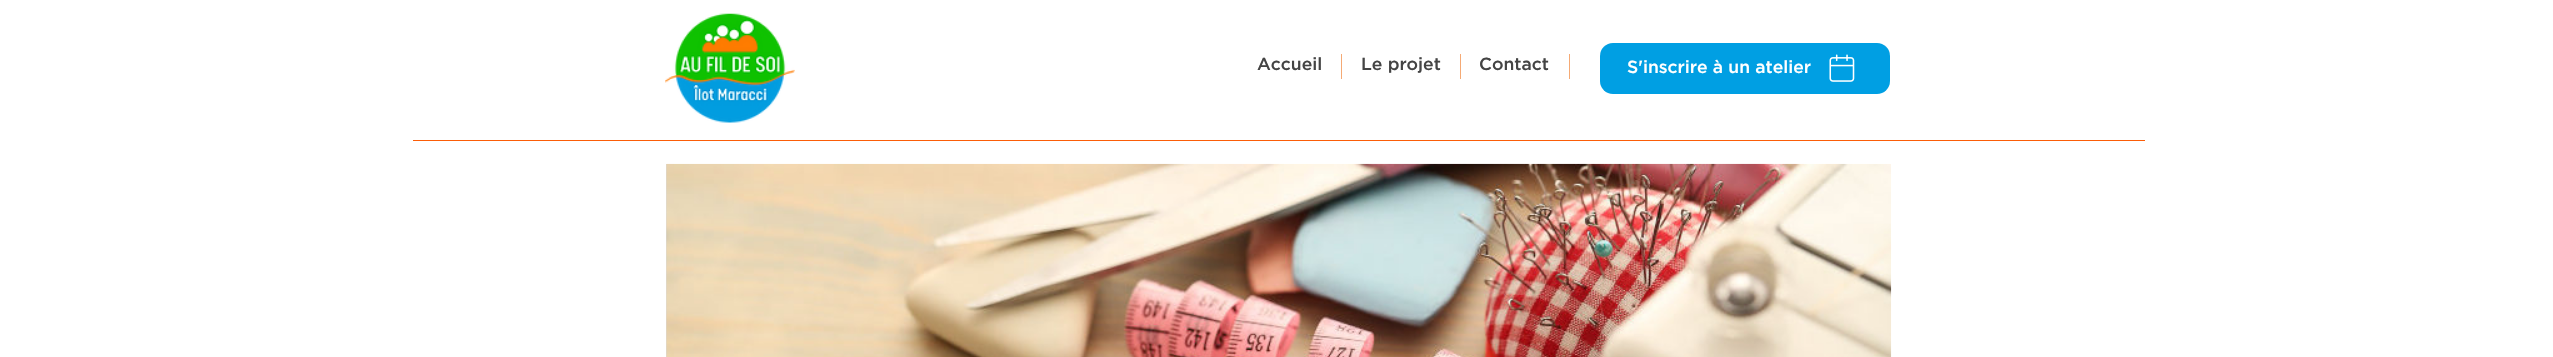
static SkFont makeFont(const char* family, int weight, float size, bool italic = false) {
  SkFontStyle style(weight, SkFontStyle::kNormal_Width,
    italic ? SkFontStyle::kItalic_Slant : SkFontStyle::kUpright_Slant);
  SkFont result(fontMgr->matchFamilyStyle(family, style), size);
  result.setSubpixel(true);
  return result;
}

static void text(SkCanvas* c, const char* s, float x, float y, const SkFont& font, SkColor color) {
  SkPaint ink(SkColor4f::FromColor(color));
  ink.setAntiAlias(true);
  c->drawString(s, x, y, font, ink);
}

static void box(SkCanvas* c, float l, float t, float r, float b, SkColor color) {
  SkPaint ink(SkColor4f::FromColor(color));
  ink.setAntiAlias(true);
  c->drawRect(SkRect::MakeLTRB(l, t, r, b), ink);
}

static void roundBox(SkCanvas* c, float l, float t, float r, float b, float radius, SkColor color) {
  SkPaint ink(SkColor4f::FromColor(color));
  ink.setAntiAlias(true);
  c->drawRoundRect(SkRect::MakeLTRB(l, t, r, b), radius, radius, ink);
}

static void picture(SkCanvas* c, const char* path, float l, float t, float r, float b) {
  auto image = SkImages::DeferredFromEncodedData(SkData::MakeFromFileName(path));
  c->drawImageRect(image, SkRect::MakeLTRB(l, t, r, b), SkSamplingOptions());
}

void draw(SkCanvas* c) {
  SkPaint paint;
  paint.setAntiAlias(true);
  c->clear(0xffffffff);
  picture(c, "img_01.png", 665, 13, 795, 123);
  SkFont face1 = makeFont("Gotham", 500, 17.5f);
  text(c, "Accueil", 1257, 70, face1, 0xff444444);
  box(c, 1341, 54, 1342, 79, 0xfff5aa75);
  text(c, "Le projet", 1361, 70, face1, 0xff444444);
  box(c, 1460, 54, 1461, 79, 0xfff5aa75);
  text(c, "Contact", 1479, 70, face1, 0xff444444);
  box(c, 1569, 54, 1570, 79, 0xfff5aa75);
  roundBox(c, 1600, 43, 1890, 94, 13, 0xff009fe3);
  text(c, "S'inscrire à un atelier", 1627, 73, face1, 0xffffffff);
  picture(c, "img_02.png", 1829, 54, 1855, 82);
  box(c, 413, 140, 2145, 141, 0xfffb5d08);
  box(c, 666, 164, 667, 357, 0xffdbdbdb);
  picture(c, "img_03.png", 666, 163, 1892, 357);
}
